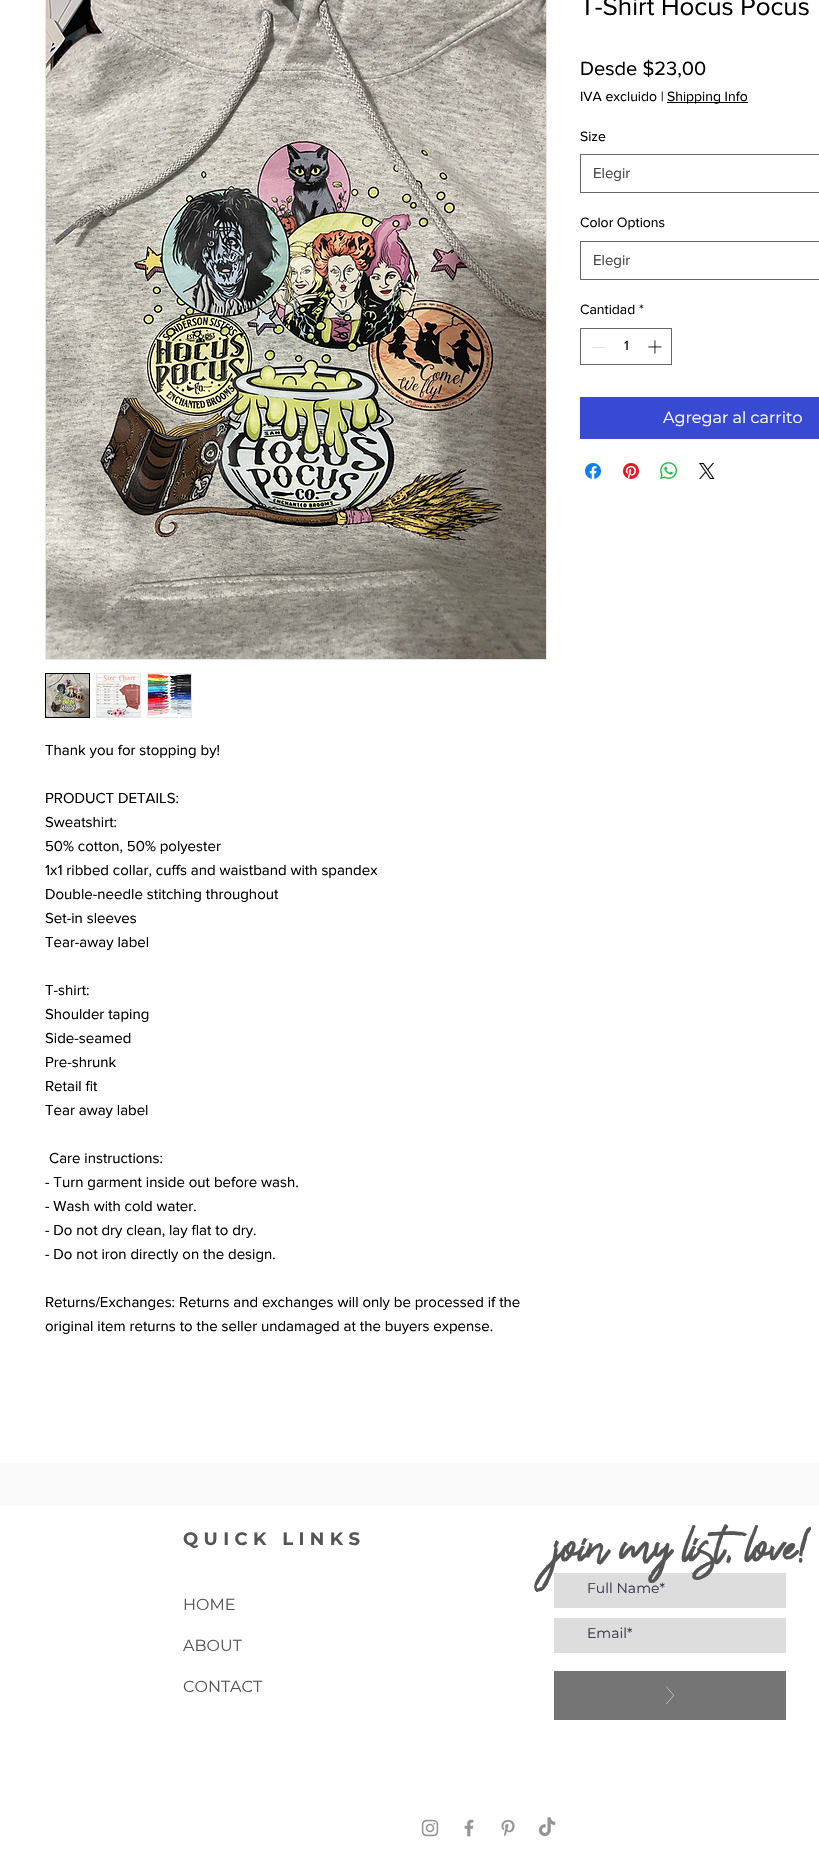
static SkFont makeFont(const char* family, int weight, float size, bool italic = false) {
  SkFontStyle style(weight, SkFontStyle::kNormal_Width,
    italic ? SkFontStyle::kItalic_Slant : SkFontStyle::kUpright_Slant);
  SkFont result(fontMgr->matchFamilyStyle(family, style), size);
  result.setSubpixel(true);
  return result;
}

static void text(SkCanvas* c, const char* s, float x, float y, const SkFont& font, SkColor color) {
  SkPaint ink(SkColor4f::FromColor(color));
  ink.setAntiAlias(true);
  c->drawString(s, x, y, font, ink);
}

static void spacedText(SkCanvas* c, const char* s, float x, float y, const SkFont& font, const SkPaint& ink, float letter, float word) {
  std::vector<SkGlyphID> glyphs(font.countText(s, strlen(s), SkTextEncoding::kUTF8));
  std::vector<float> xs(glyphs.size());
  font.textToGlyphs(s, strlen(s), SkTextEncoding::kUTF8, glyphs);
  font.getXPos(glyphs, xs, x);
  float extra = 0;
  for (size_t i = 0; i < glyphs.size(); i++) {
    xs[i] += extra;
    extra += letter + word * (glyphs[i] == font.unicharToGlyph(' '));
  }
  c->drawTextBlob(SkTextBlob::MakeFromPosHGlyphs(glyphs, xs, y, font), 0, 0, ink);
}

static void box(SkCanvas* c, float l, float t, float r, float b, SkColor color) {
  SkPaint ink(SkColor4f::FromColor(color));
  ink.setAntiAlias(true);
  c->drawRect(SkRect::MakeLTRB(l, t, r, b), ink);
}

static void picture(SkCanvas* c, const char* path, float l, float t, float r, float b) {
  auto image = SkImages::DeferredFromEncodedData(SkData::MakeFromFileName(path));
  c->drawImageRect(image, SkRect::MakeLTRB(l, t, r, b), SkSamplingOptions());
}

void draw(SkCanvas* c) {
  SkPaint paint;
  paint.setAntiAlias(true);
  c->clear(0xffffffff);
  SkFont face1 = makeFont("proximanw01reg", 400, 26);
  text(c, "T-Shirt Hocus Pocus", 580, 15, face1, 0xff000000);
  SkFont face2 = makeFont("proximanw01reg", 400, 20);
  text(c, "Desde $23,00", 580, 75, face2, 0xff000000);
  SkFont face3 = makeFont("proximanw01reg", 400, 14);
  text(c, "IVA excluido |", 580, 101, face3, 0xff000000);
  box(c, 667, 102, 748, 103, 0xff000000);
  text(c, "Shipping Info", 667, 101, face3, 0xff000000);
  text(c, "Size", 580, 141, face3, 0xff000000);
  paint.setStyle(SkPaint::kStroke_Style);
  paint.setStrokeWidth(1);
  paint.setColor(0xff666666);
  c->drawRect(SkRect::MakeLTRB(580.5f, 154.5f, 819.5f, 192.5f), paint);
  SkFont face4 = makeFont("proximanw01reg", 400, 15);
  text(c, "Elegir", 593, 178, face4, 0xff444444);
  text(c, "Color Options", 580, 227, face3, 0xff000000);
  c->drawRect(SkRect::MakeLTRB(580.5f, 241.5f, 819.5f, 279.5f), paint);
  text(c, "Elegir", 593, 265, face4, 0xff444444);
  text(c, "Cantidad", 580, 314, face3, 0xff000000);
  text(c, "*", 639, 314, face3, 0xff000000);
  c->drawRect(SkRect::MakeLTRB(580.5f, 328.5f, 671.5f, 364.5f), paint);
  box(c, 592, 347, 605, 348, 0xffe3e3e3);
  text(c, "1", 624, 350, face3, 0xff000000);
  picture(c, "img_01.png", 648, 340, 662, 354);
  box(c, 580, 397, 819, 439, 0xff384ad3);
  SkFont face5 = makeFont("Montserrat", 400, 16);
  text(c, "Agregar al carrito", 663, 423, face5, 0xffffffff);
  picture(c, "img_02.png", 585, 463, 601, 479);
  picture(c, "img_03.png", 623, 463, 639, 479);
  picture(c, "img_04.png", 660, 462, 677, 479);
  picture(c, "img_05.png", 699, 463, 715, 479);
  paint.setColor(0xffe8e6e6);
  c->drawRect(SkRect::MakeLTRB(45.5f, -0.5f, 546.5f, 659.5f), paint);
  picture(c, "img_06.png", 46, 0, 546, 659);
  paint.setColor(0xff000000);
  c->drawRect(SkRect::MakeLTRB(45.5f, 673.5f, 89.5f, 717.5f), paint);
  picture(c, "img_07.png", 46, 674, 89, 717);
  paint.setColor(0xffe8e6e6);
  c->drawRect(SkRect::MakeLTRB(96.5f, 673.5f, 140.5f, 717.5f), paint);
  picture(c, "img_08.png", 97, 674, 140, 717);
  c->drawRect(SkRect::MakeLTRB(147.5f, 673.5f, 191.5f, 717.5f), paint);
  picture(c, "img_09.png", 148, 674, 191, 717);
  text(c, "Thank you for stopping by!", 45, 755, face4, 0xff000000);
  text(c, "PRODUCT DETAILS:", 45, 803, face4, 0xff000000);
  text(c, "Sweatshirt:", 45, 827, face4, 0xff000000);
  text(c, "50% cotton, 50% polyester", 45, 851, face4, 0xff000000);
  text(c, "1x1 ribbed collar, cuffs and waistband with spandex", 45, 875, face4, 0xff000000);
  text(c, "Double-needle stitching throughout", 45, 899, face4, 0xff000000);
  text(c, "Set-in sleeves", 45, 923, face4, 0xff000000);
  text(c, "Tear-away label", 45, 947, face4, 0xff000000);
  text(c, "T-shirt:", 45, 995, face4, 0xff000000);
  text(c, "Shoulder taping", 45, 1019, face4, 0xff000000);
  text(c, "Side-seamed", 45, 1043, face4, 0xff000000);
  text(c, "Pre-shrunk", 45, 1067, face4, 0xff000000);
  text(c, "Retail fit", 45, 1091, face4, 0xff000000);
  text(c, "Tear away label", 45, 1115, face4, 0xff000000);
  text(c, "Care instructions:", 49, 1163, face4, 0xff000000);
  text(c, "- Turn garment inside out before wash.", 45, 1187, face4, 0xff000000);
  text(c, "- Wash with cold water.", 45, 1211, face4, 0xff000000);
  text(c, "- Do not dry clean, lay flat to dry.", 45, 1235, face4, 0xff000000);
  text(c, "- Do not iron directly on the design.", 45, 1259, face4, 0xff000000);
  text(c, "Returns/Exchanges: Returns and exchanges will only be processed if the", 45, 1307, face4, 0xff000000);
  text(c, "original item returns to the seller undamaged at the buyers expense.", 45, 1331, face4, 0xff000000);
  box(c, 0, 1463, 819, 1506, 0xfffafafa);
  SkFont face6 = makeFont("Montserrat", 700, 18);
  paint.setStyle(SkPaint::kFill_Style);
  paint.setColor(0xff555555);
  spacedText(c, "QUICK LINKS", 183, 1545, face6, paint, 5.4f, 0);
  box(c, 554, 1573, 786, 1608, 0xffdddddd);
  SkFont face7 = makeFont("Montserrat", 400, 14);
  text(c, "Full Name*", 587, 1593, face7, 0xff373b4d);
  SkFont face8 = makeFont("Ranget", 700, 55);
  text(c, "join my list, love!", 554, 1568, face8, 0xff555555);
  box(c, 554, 1618, 786, 1653, 0xffdddddd);
  text(c, "Email*", 587, 1638, face7, 0xff373b4d);
  box(c, 554, 1671, 786, 1720, 0xff757575);
  paint.setColor(0xffffffff);
  c->drawPath(SkPathBuilder().moveTo(674, 1695.5f).lineTo(666.5f, 1704).lineTo(666, 1704).lineTo(673.5f, 1695.5f).lineTo(666, 1686.5f).lineTo(666.5f, 1686.5f).close().detach(), paint);
  text(c, "HOME", 183, 1610, face5, 0xff555555);
  text(c, "ABOUT", 183, 1651, face5, 0xff555555);
  text(c, "CONTACT", 183, 1692, face5, 0xff555555);
  picture(c, "img_10.png", 421, 1819, 439, 1837);
  picture(c, "img_11.png", 464, 1819, 474, 1837);
  picture(c, "img_12.png", 501, 1819, 515, 1837);
  picture(c, "img_13.png", 538, 1817, 556, 1837);
}
